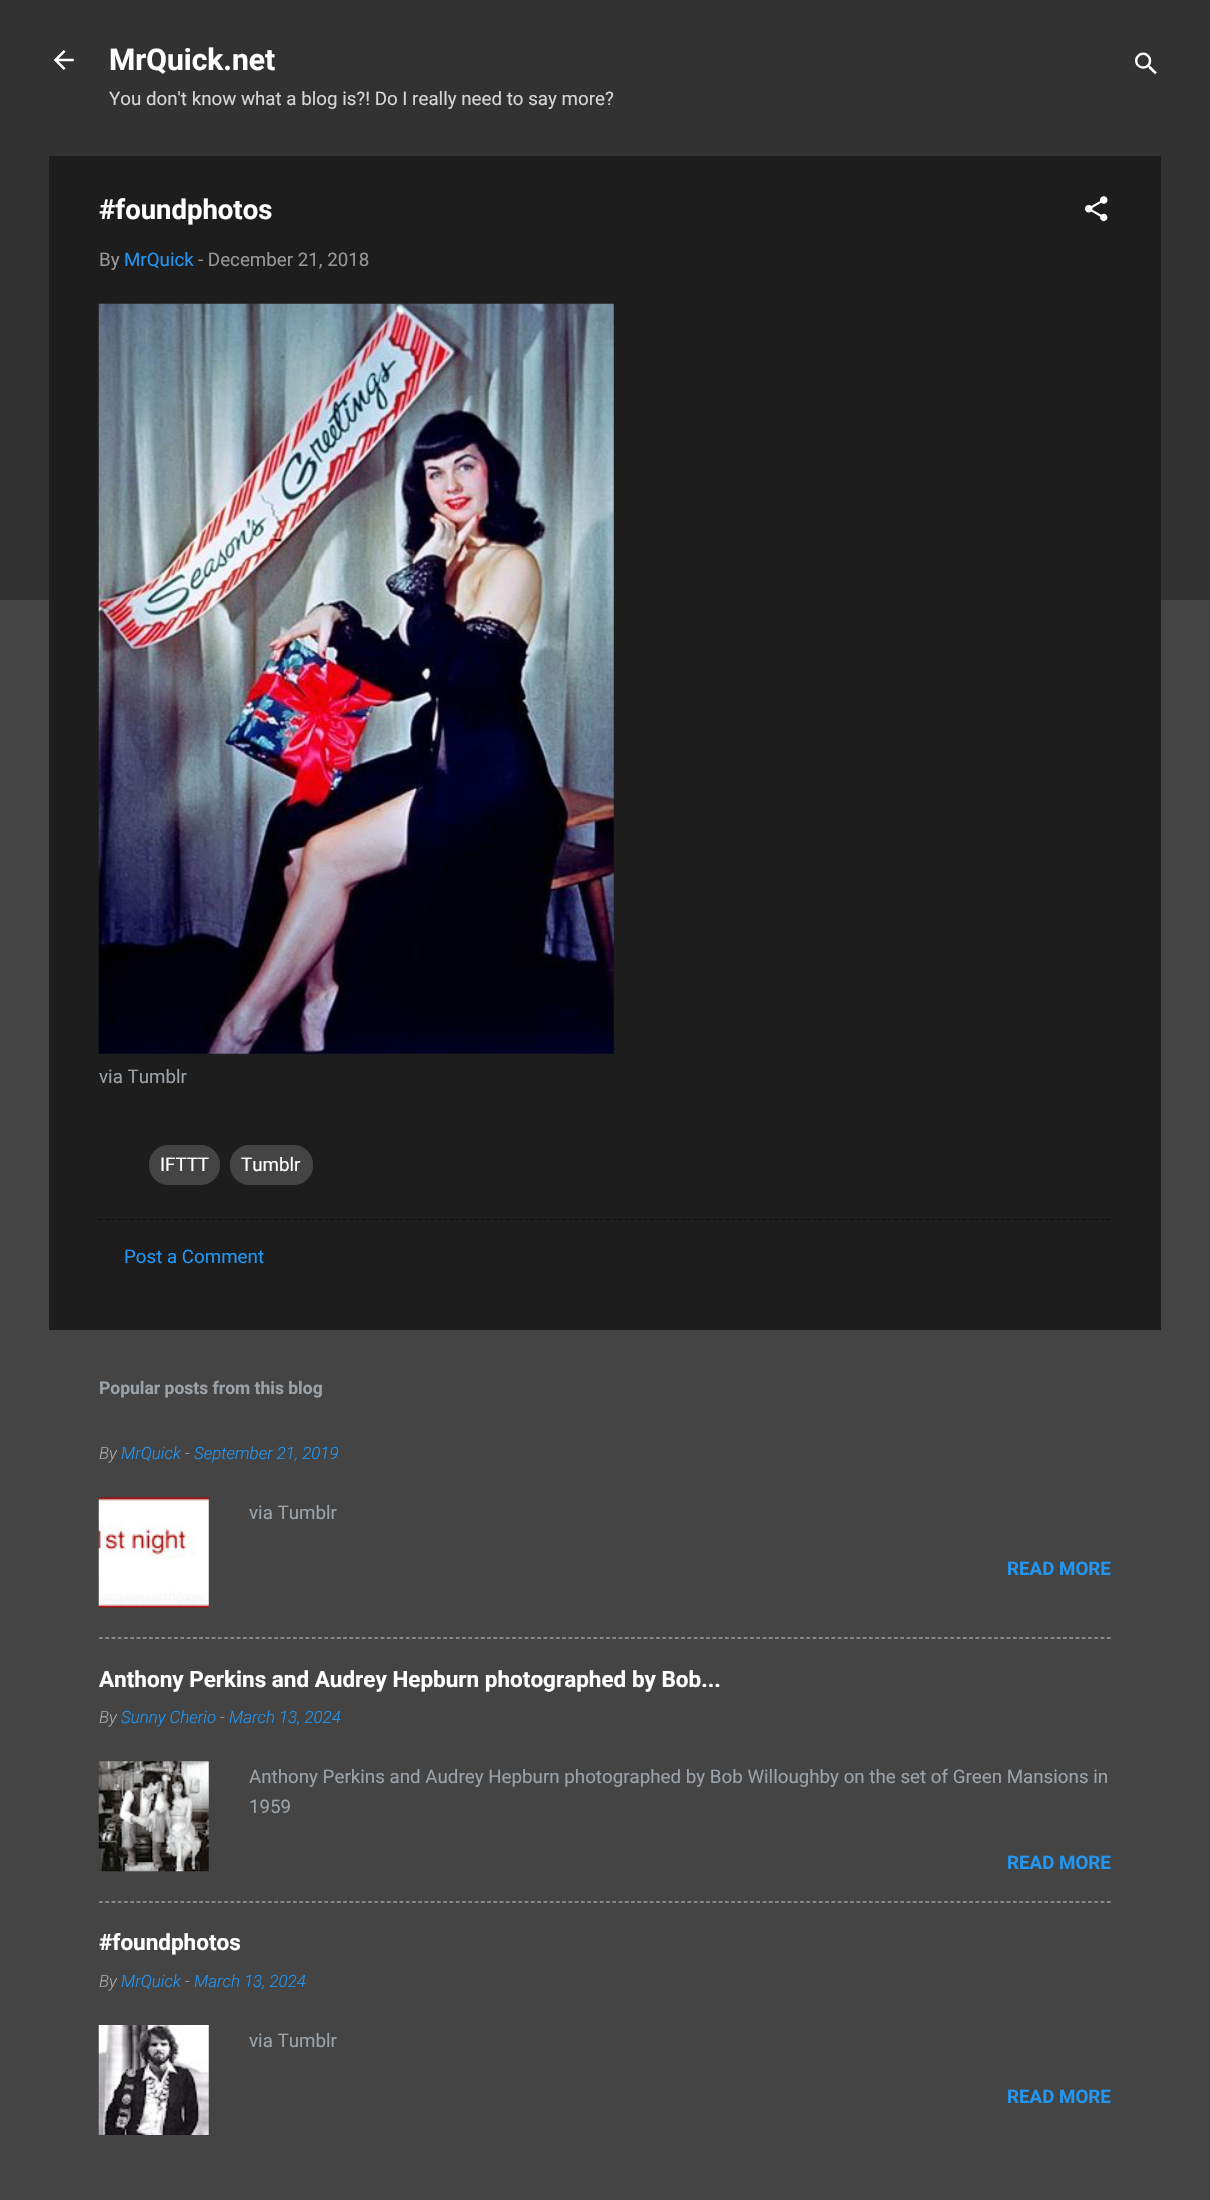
static SkFont makeFont(const char* family, int weight, float size, bool italic = false) {
  SkFontStyle style(weight, SkFontStyle::kNormal_Width,
    italic ? SkFontStyle::kItalic_Slant : SkFontStyle::kUpright_Slant);
  SkFont result(fontMgr->matchFamilyStyle(family, style), size);
  result.setSubpixel(true);
  return result;
}

static void text(SkCanvas* c, const char* s, float x, float y, const SkFont& font, SkColor color) {
  SkPaint ink(SkColor4f::FromColor(color));
  ink.setAntiAlias(true);
  c->drawString(s, x, y, font, ink);
}

static void box(SkCanvas* c, float l, float t, float r, float b, SkColor color) {
  SkPaint ink(SkColor4f::FromColor(color));
  ink.setAntiAlias(true);
  c->drawRect(SkRect::MakeLTRB(l, t, r, b), ink);
}

static void picture(SkCanvas* c, const char* path, float l, float t, float r, float b) {
  auto image = SkImages::DeferredFromEncodedData(SkData::MakeFromFileName(path));
  c->drawImageRect(image, SkRect::MakeLTRB(l, t, r, b), SkSamplingOptions());
}

void draw(SkCanvas* c) {
  SkPaint paint;
  paint.setAntiAlias(true);
  c->clear(0xff444444);
  box(c, 0, 0, 1210, 600, 0xff323232);
  picture(c, "img_01.png", 54, 50, 74, 70);
  SkFont face1 = makeFont("Roboto", 700, 30);
  text(c, "MrQuick.net", 109, 70, face1, 0xffffffff);
  SkFont face2 = makeFont("Roboto", 400, 18.75f);
  text(c, "You don't know what a blog is?! Do I really need to say more?", 109, 105, face2, 0xffd6d6d6);
  picture(c, "img_02.png", 1135, 52, 1157, 75);
  box(c, 49, 156, 1161, 1330, 0xff1d1d1d);
  SkFont face3 = makeFont("Roboto", 700, 27.5f);
  text(c, "#foundphotos", 99, 219, face3, 0xffffffff);
  picture(c, "img_03.png", 1085, 196, 1108, 222);
  text(c, "By", 99, 266, face2, 0xff979797);
  text(c, "MrQuick", 124, 266, face2, 0xff2196f3);
  text(c, "- December 21, 2018", 198, 266, face2, 0xff979797);
  picture(c, "img_04.png", 98, 303, 614, 1054);
  text(c, "via Tumblr", 99, 1083, face2, 0xff9ba2a8);
  paint.setColor(0xff444444);
  c->drawRoundRect(SkRect::MakeLTRB(149.5f, 1145.5f, 219.5f, 1184.5f), 18.5f, 18.5f, paint);
  paint.setStyle(SkPaint::kStroke_Style);
  paint.setStrokeWidth(1);
  c->drawRoundRect(SkRect::MakeLTRB(149.5f, 1145.5f, 219.5f, 1184.5f), 18.5f, 18.5f, paint);
  text(c, "IFTTT", 160, 1171, face2, 0xffffffff);
  paint.setStyle(SkPaint::kFill_Style);
  c->drawRoundRect(SkRect::MakeLTRB(230.5f, 1145.5f, 312.5f, 1184.5f), 18.5f, 18.5f, paint);
  paint.setStyle(SkPaint::kStroke_Style);
  c->drawRoundRect(SkRect::MakeLTRB(230.5f, 1145.5f, 312.5f, 1184.5f), 18.5f, 18.5f, paint);
  text(c, "Tumblr", 241, 1171, face2, 0xffffffff);
  paint.setStrokeWidth(1.2f);
  paint.setColor(0xff0d0d0d);
  paint.setPathEffect(SkDashPathEffect::Make({{3.75f, 2.51f}}, 0));
  c->drawPath(SkPathBuilder().moveTo(99, 1219.5f).lineTo(1111, 1219.5f).detach(), paint);
  paint.setPathEffect(nullptr);
  text(c, "Post a Comment", 124, 1263, face2, 0xff2196f3);
  SkFont face4 = makeFont("Roboto", 700, 17.5f);
  text(c, "Popular posts from this blog", 99, 1394, face4, 0xff9ba2a8);
  SkFont face5 = makeFont("Roboto", 300, 16.9f, true);
  text(c, "By", 99, 1459, face5, 0xffa9a9a9);
  text(c, "MrQuick", 121, 1459, face5, 0xff2196f3);
  text(c, "-", 185, 1459, face5, 0xffa9a9a9);
  text(c, "September 21, 2019", 194, 1459, face5, 0xff2196f3);
  picture(c, "img_05.png", 98, 1497, 209, 1608);
  text(c, "via Tumblr", 249, 1519, face2, 0xff9ba2a8);
  SkFont face6 = makeFont("Roboto", 700, 18.75f);
  text(c, "READ MORE", 1007, 1575, face6, 0xff2196f3);
  paint.setColor(0xffcccccc);
  paint.setPathEffect(SkDashPathEffect::Make({{3.75f, 2.51f}}, 0));
  c->drawPath(SkPathBuilder().moveTo(99, 1638).lineTo(1111, 1638).detach(), paint);
  paint.setPathEffect(nullptr);
  SkFont face7 = makeFont("Roboto", 700, 22.5f);
  text(c, "Anthony Perkins and Audrey Hepburn photographed by Bob...", 99, 1687, face7, 0xffffffff);
  text(c, "By", 99, 1723, face5, 0xffa9a9a9);
  text(c, "Sunny Cherio", 121, 1723, face5, 0xff2196f3);
  text(c, "-", 220, 1723, face5, 0xffa9a9a9);
  text(c, "March 13, 2024", 229, 1723, face5, 0xff2196f3);
  picture(c, "img_06.png", 98, 1761, 209, 1872);
  text(c, "Anthony Perkins and Audrey Hepburn photographed by Bob Willoughby on the set of Green Mansions in", 249, 1783, face2, 0xff9ba2a8);
  text(c, "1959", 249, 1813, face2, 0xff9ba2a8);
  text(c, "READ MORE", 1007, 1869, face6, 0xff2196f3);
  paint.setPathEffect(SkDashPathEffect::Make({{3.75f, 2.51f}}, 0));
  c->drawPath(SkPathBuilder().moveTo(99, 1902).lineTo(1111, 1902).detach(), paint);
  paint.setPathEffect(nullptr);
  text(c, "#foundphotos", 99, 1950, face7, 0xffffffff);
  text(c, "By", 99, 1987, face5, 0xffa9a9a9);
  text(c, "MrQuick", 121, 1987, face5, 0xff2196f3);
  text(c, "-", 185, 1987, face5, 0xffa9a9a9);
  text(c, "March 13, 2024", 194, 1987, face5, 0xff2196f3);
  picture(c, "img_07.png", 98, 2025, 209, 2135);
  text(c, "via Tumblr", 249, 2047, face2, 0xff9ba2a8);
  text(c, "READ MORE", 1007, 2103, face6, 0xff2196f3);
}
